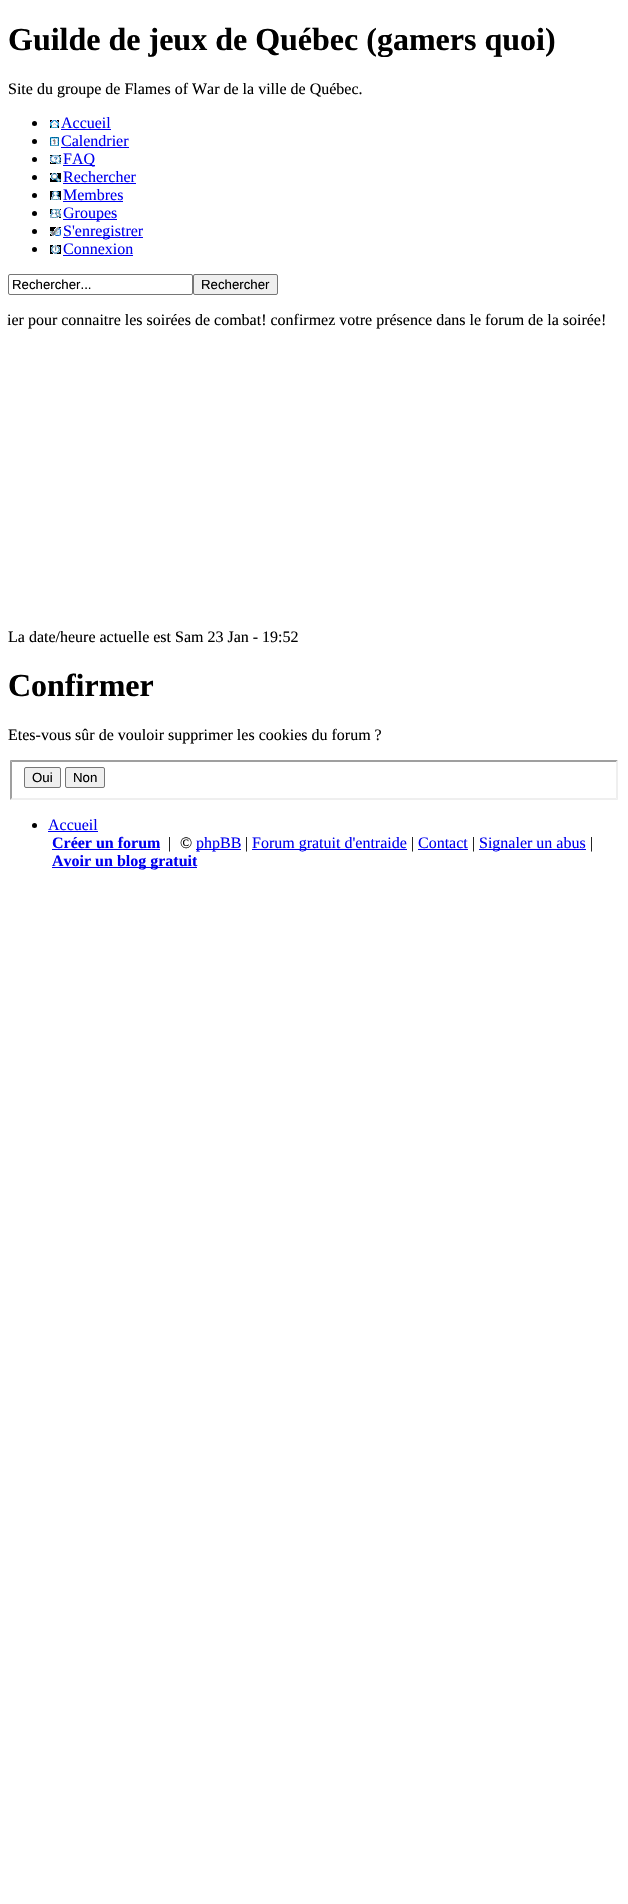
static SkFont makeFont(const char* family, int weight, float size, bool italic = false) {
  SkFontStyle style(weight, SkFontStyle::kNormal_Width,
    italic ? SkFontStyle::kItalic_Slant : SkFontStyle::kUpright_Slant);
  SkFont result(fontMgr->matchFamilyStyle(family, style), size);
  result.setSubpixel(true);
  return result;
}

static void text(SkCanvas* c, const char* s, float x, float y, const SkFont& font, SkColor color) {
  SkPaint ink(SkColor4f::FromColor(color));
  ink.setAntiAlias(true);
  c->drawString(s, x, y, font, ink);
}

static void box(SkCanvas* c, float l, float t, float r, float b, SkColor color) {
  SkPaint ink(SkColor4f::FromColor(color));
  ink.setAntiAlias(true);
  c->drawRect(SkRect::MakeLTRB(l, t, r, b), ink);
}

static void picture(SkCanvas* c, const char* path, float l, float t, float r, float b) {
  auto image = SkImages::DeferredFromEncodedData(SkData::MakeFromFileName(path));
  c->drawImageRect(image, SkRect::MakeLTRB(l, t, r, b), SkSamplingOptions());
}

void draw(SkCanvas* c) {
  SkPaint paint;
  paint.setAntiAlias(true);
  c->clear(0xffffffff);
  SkFont face1 = makeFont("Liberation Serif", 700, 32);
  text(c, "Guilde de jeux de Québec (gamers quoi)", 8, 50, face1, 0xff000000);
  SkFont face2 = makeFont("Liberation Serif", 400, 16);
  text(c, "Site du groupe de Flames of War de la ville de Québec.", 8, 94, face2, 0xff000000);
  paint.setColor(0xff000000);
  c->drawCircle(34.5f, 123.5f, 2.5f, paint);
  picture(c, "img_01.png", 50, 120, 59, 128);
  text(c, "Accueil", 61, 128, face2, 0xff0000ee);
  box(c, 61, 129, 111, 130, 0xff0000ee);
  c->drawCircle(34.5f, 141.5f, 2.5f, paint);
  picture(c, "img_02.png", 50, 137, 59, 146);
  text(c, "Calendrier", 61, 146, face2, 0xff0000ee);
  box(c, 61, 147, 129, 148, 0xff0000ee);
  c->drawCircle(34.5f, 159.5f, 2.5f, paint);
  picture(c, "img_03.png", 50, 155, 61, 164);
  box(c, 63, 165, 95, 166, 0xff0000ee);
  text(c, "FAQ", 63, 164, face2, 0xff0000ee);
  c->drawCircle(34.5f, 177.5f, 2.5f, paint);
  picture(c, "img_04.png", 50, 173, 61, 182);
  text(c, "Rechercher", 63, 182, face2, 0xff0000ee);
  box(c, 63, 183, 136, 184, 0xff0000ee);
  c->drawCircle(34.5f, 195.5f, 2.5f, paint);
  picture(c, "img_05.png", 50, 191, 61, 200);
  text(c, "Membres", 63, 200, face2, 0xff0000ee);
  box(c, 63, 201, 123, 202, 0xff0000ee);
  c->drawCircle(34.5f, 213.5f, 2.5f, paint);
  picture(c, "img_06.png", 50, 209, 61, 218);
  box(c, 63, 219, 117, 220, 0xff0000ee);
  text(c, "Groupes", 63, 218, face2, 0xff0000ee);
  c->drawCircle(34.5f, 231.5f, 2.5f, paint);
  picture(c, "img_07.png", 50, 227, 61, 236);
  box(c, 63, 237, 143, 238, 0xff0000ee);
  text(c, "S'enregistrer", 63, 236, face2, 0xff0000ee);
  c->drawCircle(34.5f, 249.5f, 2.5f, paint);
  picture(c, "img_08.png", 50, 245, 61, 254);
  text(c, "Connexion", 63, 254, face2, 0xff0000ee);
  box(c, 63, 255, 133, 256, 0xff0000ee);
  paint.setStyle(SkPaint::kStroke_Style);
  paint.setStrokeWidth(1);
  paint.setColor(0xff767676);
  c->drawRoundRect(SkRect::MakeLTRB(8.5f, 274.5f, 192.5f, 294.5f), 1.5f, 1.5f, paint);
  SkFont face3 = makeFont("Liberation Sans", 400, 13.25f);
  text(c, "Rechercher...", 12, 289, face3, 0xff000000);
  paint.setStyle(SkPaint::kFill_Style);
  paint.setColor(0xffefefef);
  c->drawRoundRect(SkRect::MakeLTRB(193.5f, 274.5f, 277.5f, 294.5f), 1.5f, 1.5f, paint);
  paint.setStyle(SkPaint::kStroke_Style);
  paint.setColor(0xff767676);
  c->drawRoundRect(SkRect::MakeLTRB(193.5f, 274.5f, 277.5f, 294.5f), 1.5f, 1.5f, paint);
  text(c, "Rechercher", 201, 289, face3, 0xff000000);
  text(c, "ier pour connaitre les soirées de combat! confirmez votre présence dans le forum de la soirée!", 7, 325, face2, 0xff000000);
  text(c, "La date/heure actuelle est Sam 23 Jan - 19:52", 8, 642, face2, 0xff000000);
  text(c, "Confirmer", 8, 696, face1, 0xff000000);
  text(c, "Etes-vous sûr de vouloir supprimer les cookies du forum ?", 8, 740, face2, 0xff000000);
  paint.setStyle(SkPaint::kFill_Style);
  paint.setColor(0xff9f9f9f);
  c->drawPath(SkPathBuilder().moveTo(10, 760).lineTo(618, 760).lineTo(616, 762).lineTo(12, 762).close().detach(), paint);
  paint.setColor(0xffefefef);
  c->drawPath(SkPathBuilder().moveTo(618, 760).lineTo(618, 800).lineTo(616, 798).lineTo(616, 762).close().detach(), paint);
  c->drawPath(SkPathBuilder().moveTo(618, 800).lineTo(10, 800).lineTo(12, 798).lineTo(616, 798).close().detach(), paint);
  paint.setColor(0xff9f9f9f);
  c->drawPath(SkPathBuilder().moveTo(10, 800).lineTo(10, 760).lineTo(12, 762).lineTo(12, 798).close().detach(), paint);
  paint.setColor(0xffefefef);
  c->drawRoundRect(SkRect::MakeLTRB(24.5f, 767.5f, 60.5f, 787.5f), 1.5f, 1.5f, paint);
  paint.setStyle(SkPaint::kStroke_Style);
  paint.setColor(0xff767676);
  c->drawRoundRect(SkRect::MakeLTRB(24.5f, 767.5f, 60.5f, 787.5f), 1.5f, 1.5f, paint);
  text(c, "Oui", 32, 782, face3, 0xff000000);
  paint.setStyle(SkPaint::kFill_Style);
  paint.setColor(0xffefefef);
  c->drawRoundRect(SkRect::MakeLTRB(65.5f, 767.5f, 104.5f, 787.5f), 1.5f, 1.5f, paint);
  paint.setStyle(SkPaint::kStroke_Style);
  paint.setColor(0xff767676);
  c->drawRoundRect(SkRect::MakeLTRB(65.5f, 767.5f, 104.5f, 787.5f), 1.5f, 1.5f, paint);
  text(c, "Non", 73, 782, face3, 0xff000000);
  paint.setStyle(SkPaint::kFill_Style);
  paint.setColor(0xff000000);
  c->drawCircle(34.5f, 825.5f, 2.5f, paint);
  text(c, "Accueil", 48, 830, face2, 0xff0000ee);
  box(c, 48, 831, 98, 832, 0xff0000ee);
  SkFont face4 = makeFont("Liberation Serif", 700, 16);
  text(c, "Créer un forum", 52, 848, face4, 0xff0000ee);
  box(c, 52, 849, 160, 850, 0xff0000ee);
  text(c, "|", 168, 848, face2, 0xff000000);
  text(c, "©", 180, 848, face2, 0xff000000);
  box(c, 196, 849, 241, 850, 0xff0000ee);
  text(c, "phpBB", 196, 848, face2, 0xff0000ee);
  text(c, "|", 245, 848, face2, 0xff000000);
  box(c, 252, 849, 407, 850, 0xff0000ee);
  text(c, "Forum gratuit d'entraide", 252, 848, face2, 0xff0000ee);
  text(c, "|", 411, 848, face2, 0xff000000);
  text(c, "Contact", 418, 848, face2, 0xff0000ee);
  box(c, 418, 849, 468, 850, 0xff0000ee);
  text(c, "|", 472, 848, face2, 0xff000000);
  box(c, 479, 849, 586, 850, 0xff0000ee);
  text(c, "Signaler un abus", 479, 848, face2, 0xff0000ee);
  text(c, "|", 590, 848, face2, 0xff000000);
  box(c, 52, 867, 197, 868, 0xff0000ee);
  text(c, "Avoir un blog gratuit", 52, 866, face4, 0xff0000ee);
}
